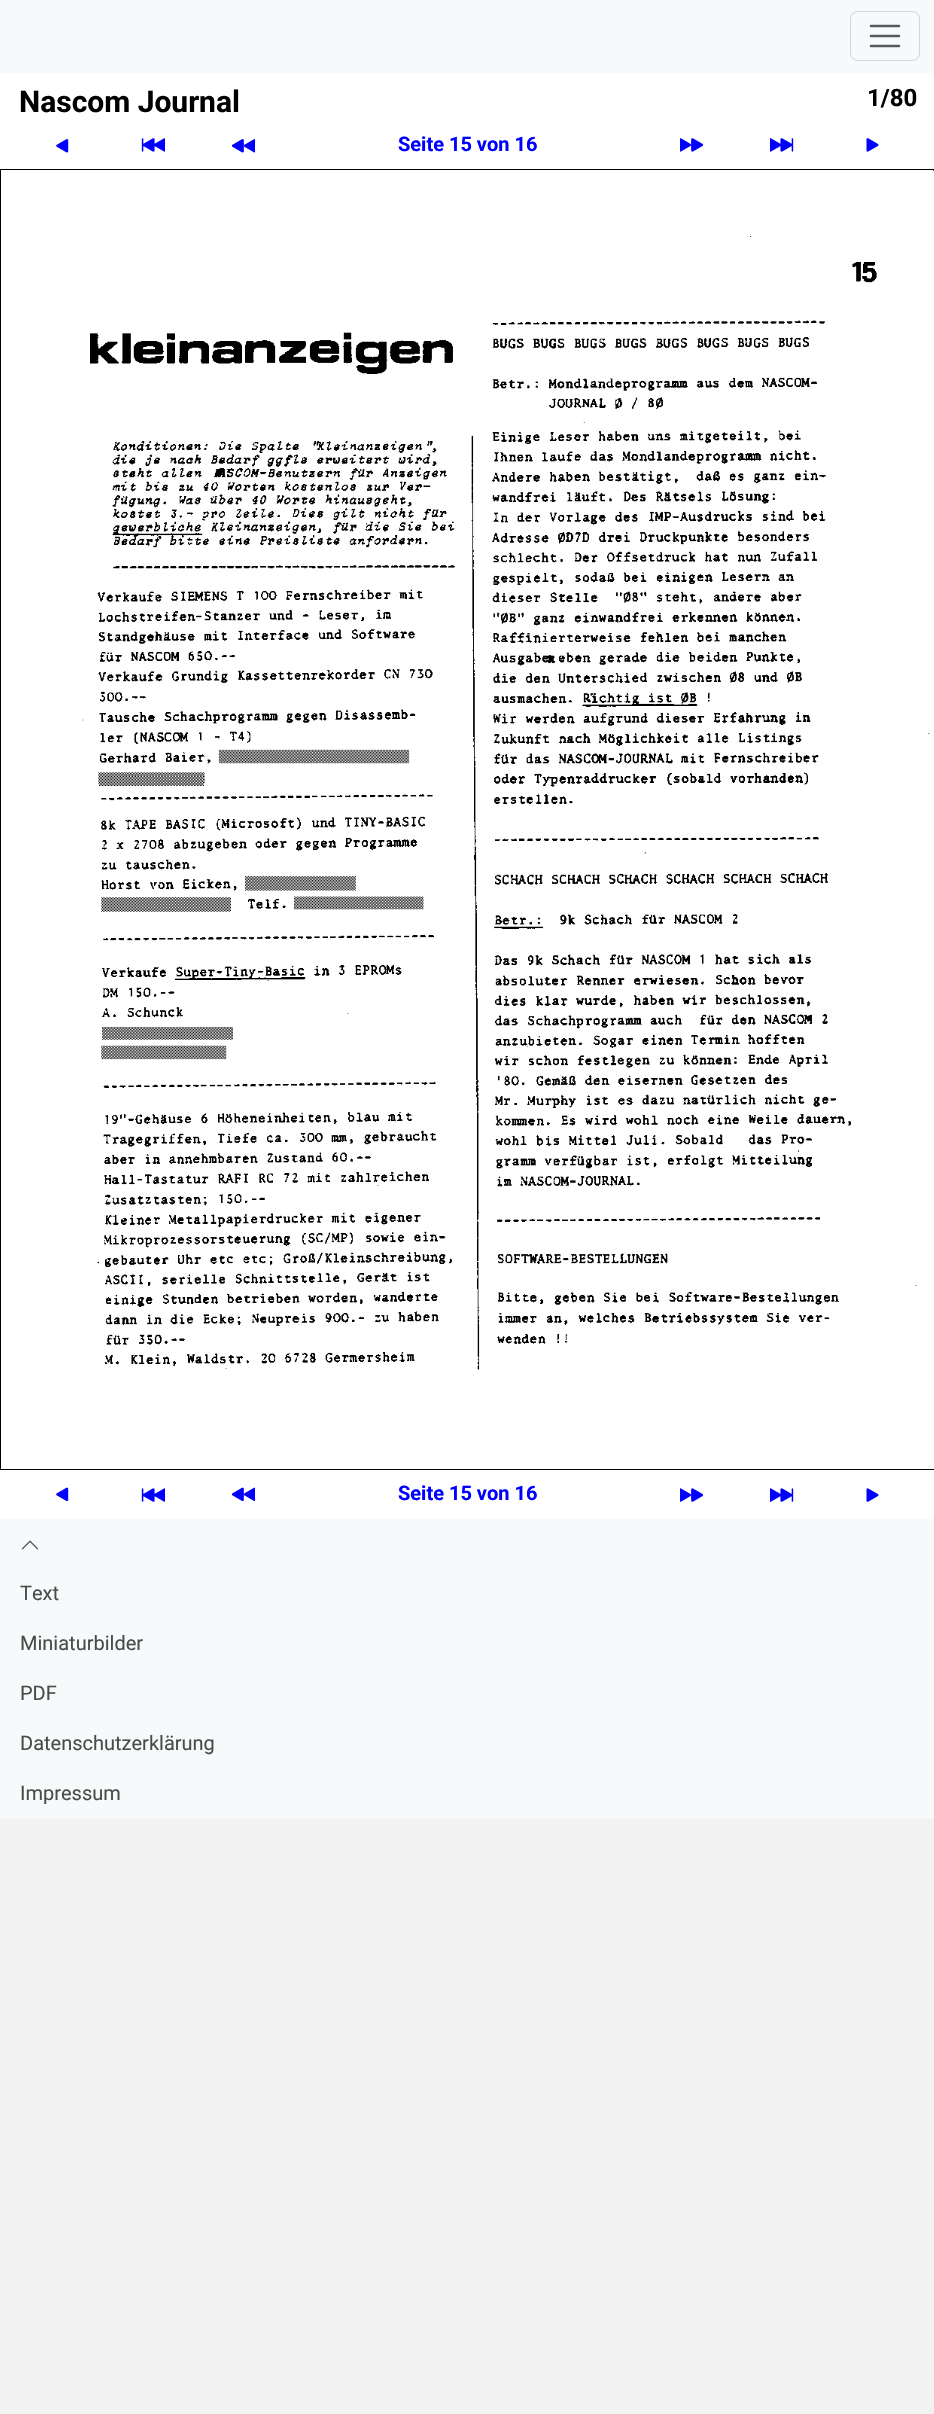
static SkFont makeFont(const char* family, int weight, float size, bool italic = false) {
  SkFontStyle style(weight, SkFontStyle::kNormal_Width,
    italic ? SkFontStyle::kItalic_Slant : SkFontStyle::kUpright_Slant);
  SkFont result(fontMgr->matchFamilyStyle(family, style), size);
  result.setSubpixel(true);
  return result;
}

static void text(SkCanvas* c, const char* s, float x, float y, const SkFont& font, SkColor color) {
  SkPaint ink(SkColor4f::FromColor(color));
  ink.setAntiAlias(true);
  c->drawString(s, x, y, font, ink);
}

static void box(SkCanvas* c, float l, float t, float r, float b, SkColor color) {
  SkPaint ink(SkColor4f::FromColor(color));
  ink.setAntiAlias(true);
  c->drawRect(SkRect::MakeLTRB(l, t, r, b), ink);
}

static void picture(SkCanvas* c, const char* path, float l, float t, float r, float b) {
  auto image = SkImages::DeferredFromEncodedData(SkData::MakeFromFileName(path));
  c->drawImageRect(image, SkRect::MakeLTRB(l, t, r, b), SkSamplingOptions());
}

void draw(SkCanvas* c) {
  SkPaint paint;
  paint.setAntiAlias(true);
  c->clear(0xfff2f2f2);
  box(c, 0, 0, 934, 73, 0xfff8f9fa);
  paint.setStyle(SkPaint::kStroke_Style);
  paint.setStrokeWidth(1);
  paint.setColor(0xffd3d4d5);
  c->drawRoundRect(SkRect::MakeLTRB(850.5f, 11.5f, 919.5f, 60.5f), 7.5f, 7.5f, paint);
  paint.setStrokeWidth(2.5f);
  paint.setStrokeCap(SkPaint::kRound_Cap);
  paint.setColor(0xff575a5d);
  c->drawPath(SkPathBuilder().moveTo(871, 26).lineTo(899, 26).moveTo(871, 36).lineTo(899, 36).moveTo(871, 46).lineTo(899, 46).detach(), paint);
  box(c, 0, 73, 934, 1519, 0xffffffff);
  SkFont face1 = makeFont("Roboto", 700, 30);
  text(c, "Nascom Journal", 19, 112, face1, 0xff000000);
  SkFont face2 = makeFont("Roboto", 700, 24);
  text(c, "1/80", 867, 106, face2, 0xff000000);
  picture(c, "img_01.png", 56, 139, 69, 153);
  picture(c, "img_02.png", 141, 138, 165, 152);
  picture(c, "img_03.png", 231, 139, 255, 153);
  SkFont face3 = makeFont("Roboto", 700, 20);
  text(c, "Seite 15 von 16", 398, 151, face3, 0xff0000ff);
  picture(c, "img_04.png", 680, 138, 704, 152);
  picture(c, "img_05.png", 770, 138, 794, 152);
  picture(c, "img_06.png", 866, 138, 879, 152);
  paint.setStrokeWidth(1);
  paint.setStrokeCap(SkPaint::kButt_Cap);
  paint.setColor(0xff000000);
  c->drawRect(SkRect::MakeLTRB(0.5f, 169.5f, 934.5f, 1469.5f), paint);
  picture(c, "img_07.png", 82, 170, 934, 1370);
  picture(c, "img_08.png", 56, 1487, 69, 1501);
  picture(c, "img_09.png", 141, 1488, 165, 1502);
  picture(c, "img_10.png", 231, 1487, 255, 1502);
  text(c, "Seite 15 von 16", 398, 1500, face3, 0xff0000ff);
  picture(c, "img_11.png", 680, 1488, 704, 1502);
  picture(c, "img_12.png", 770, 1488, 794, 1502);
  picture(c, "img_13.png", 866, 1488, 879, 1502);
  box(c, 0, 1519, 934, 1819, 0xfff8f9fa);
  picture(c, "img_14.png", 21, 1540, 39, 1550);
  SkFont face4 = makeFont("Roboto", 400, 20);
  text(c, "Text", 20, 1600, face4, 0xff4a4b4b);
  text(c, "Miniaturbilder", 20, 1650, face4, 0xff4a4b4b);
  text(c, "PDF", 20, 1700, face4, 0xff4a4b4b);
  text(c, "Datenschutzerklärung", 20, 1750, face4, 0xff4a4b4b);
  text(c, "Impressum", 20, 1800, face4, 0xff4a4b4b);
}
